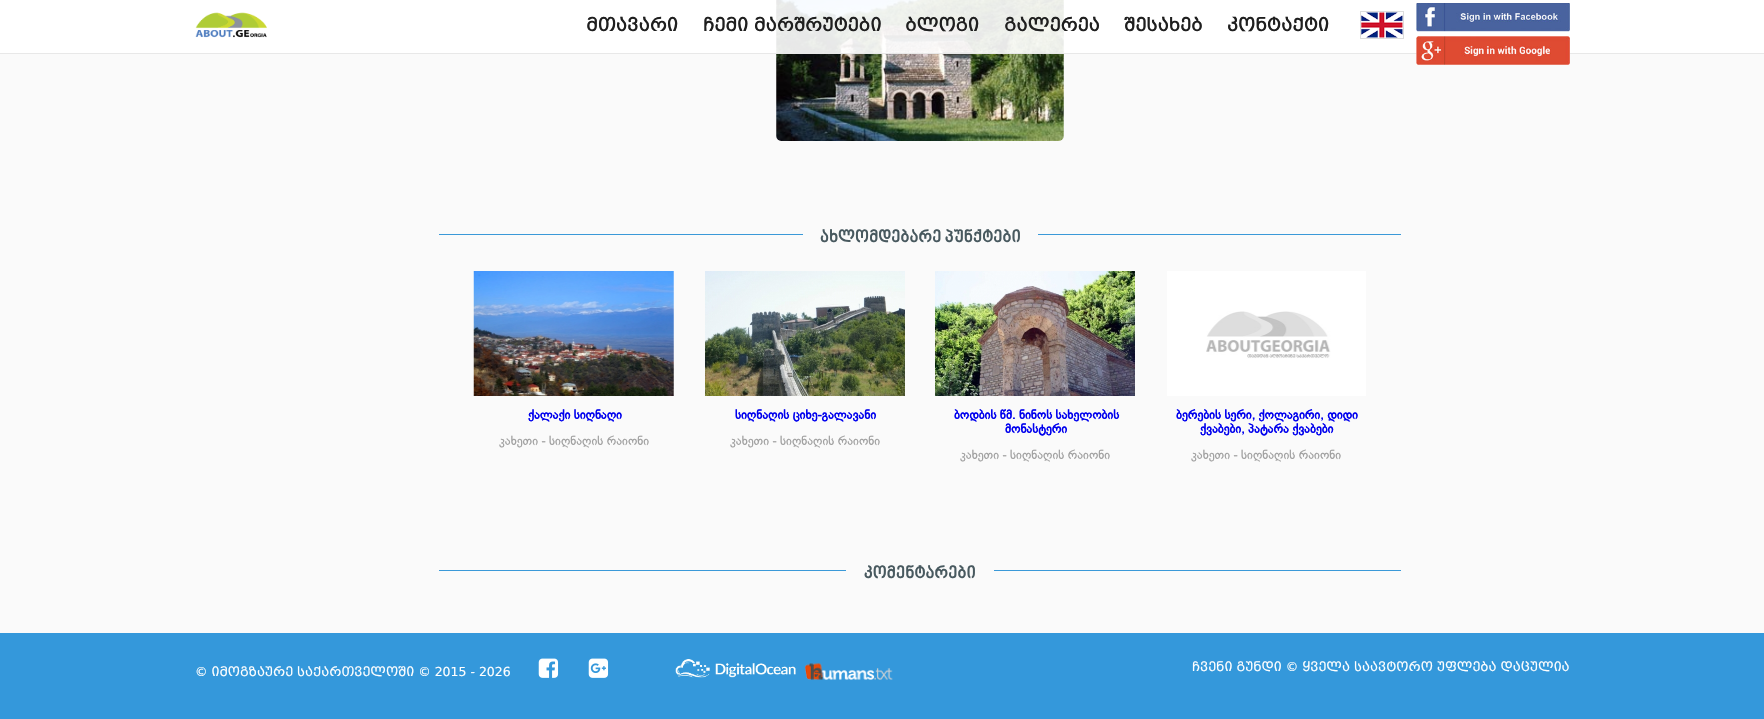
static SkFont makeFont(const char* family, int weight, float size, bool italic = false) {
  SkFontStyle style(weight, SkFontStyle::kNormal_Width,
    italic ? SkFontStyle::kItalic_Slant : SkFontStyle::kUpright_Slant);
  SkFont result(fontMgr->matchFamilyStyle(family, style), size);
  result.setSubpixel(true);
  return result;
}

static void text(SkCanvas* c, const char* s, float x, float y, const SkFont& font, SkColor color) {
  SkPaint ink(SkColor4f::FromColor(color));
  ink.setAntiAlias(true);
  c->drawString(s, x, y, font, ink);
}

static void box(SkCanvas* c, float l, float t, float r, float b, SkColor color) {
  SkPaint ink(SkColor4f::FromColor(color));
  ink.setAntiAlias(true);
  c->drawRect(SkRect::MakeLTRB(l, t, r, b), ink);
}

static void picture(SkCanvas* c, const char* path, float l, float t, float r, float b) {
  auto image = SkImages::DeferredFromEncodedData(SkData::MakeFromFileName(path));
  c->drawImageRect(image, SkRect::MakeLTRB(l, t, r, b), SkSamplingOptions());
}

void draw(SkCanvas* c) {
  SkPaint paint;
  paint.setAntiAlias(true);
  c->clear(0xfffafafa);
  picture(c, "img_05.png", 776, 0, 1064, 141);
  box(c, 0, 0, 1764, 53, 0xe6ffffff);
  box(c, 0, 53, 1764, 54, 0xffe8e8e8);
  picture(c, "img_01.png", 195, 12, 267, 38);
  SkFont face1 = makeFont("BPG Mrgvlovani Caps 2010", 700, 17.5f);
  text(c, "მთავარი", 586, 31, face1, 0xff1f1f1f);
  text(c, "ჩემი მარშრუტები", 703, 31, face1, 0xff1f1f1f);
  text(c, "ბლოგი", 905, 31, face1, 0xff1f1f1f);
  text(c, "გალერეა", 1004, 31, face1, 0xff1f1f1f);
  text(c, "შესახებ", 1124, 31, face1, 0xff1f1f1f);
  text(c, "კონტაქტი", 1227, 31, face1, 0xff1f1f1f);
  paint.setStyle(SkPaint::kStroke_Style);
  paint.setStrokeWidth(1);
  paint.setColor(0xffdddddd);
  c->drawRect(SkRect::MakeLTRB(1360.5f, 11.5f, 1403.5f, 38.5f), paint);
  picture(c, "img_02.png", 1361, 12, 1403, 38);
  picture(c, "img_03.png", 1416, 3, 1570, 32);
  picture(c, "img_04.png", 1416, 36, 1570, 65);
  box(c, 439, 234, 1401, 235, 0xff3a99d8);
  box(c, 803, 234, 1038, 235, 0xfffafafa);
  SkFont face2 = makeFont("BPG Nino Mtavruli", 700, 17.5f, true);
  text(c, "ახლომდებარე პუნქტები", 820, 243, face2, 0xff48595f);
  picture(c, "img_06.png", 473, 271, 674, 396);
  SkFont face3 = makeFont("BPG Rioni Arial", 700, 12.5f);
  text(c, "ქალაქი სიღნაღი", 528, 419, face3, 0xff0000ee);
  SkFont face4 = makeFont("BPG Rioni Arial", 400, 12.5f);
  text(c, "კახეთი - სიღნაღის რაიონი", 499, 445, face4, 0xffa0a0a0);
  picture(c, "img_07.png", 705, 271, 905, 396);
  text(c, "სიღნაღის ციხე-გალავანი", 735, 419, face3, 0xff0000ee);
  text(c, "კახეთი - სიღნაღის რაიონი", 730, 445, face4, 0xffa0a0a0);
  picture(c, "img_08.png", 935, 271, 1135, 396);
  text(c, "ბოდბის წმ. ნინოს სახელობის", 954, 419, face3, 0xff0000ee);
  text(c, "მონასტერი", 1005, 433, face3, 0xff0000ee);
  text(c, "კახეთი - სიღნაღის რაიონი", 960, 459, face4, 0xffa0a0a0);
  picture(c, "img_09.png", 1167, 271, 1366, 396);
  text(c, "ბერების სერი, ქოლაგირი, დიდი", 1176, 419, face3, 0xff0000ee);
  text(c, "ქვაბები, პატარა ქვაბები", 1200, 433, face3, 0xff0000ee);
  text(c, "კახეთი - სიღნაღის რაიონი", 1191, 459, face4, 0xffa0a0a0);
  box(c, 439, 570, 1401, 571, 0xff3a99d8);
  box(c, 846, 570, 994, 571, 0xfffafafa);
  text(c, "კომენტარები", 864, 579, face2, 0xff48595f);
  box(c, 0, 633, 1764, 719, 0xff3498db);
  SkFont face5 = makeFont("BPG Mrgvlovani Caps 2010", 400, 12.5f);
  text(c, "© იმოგზაურე საქართველოში © 2015 - 2026", 195, 676, face5, 0xffffffff);
  picture(c, "img_10.png", 538, 658, 559, 678);
  picture(c, "img_11.png", 588, 658, 609, 678);
  picture(c, "img_12.png", 675, 659, 796, 678);
  picture(c, "img_13.png", 805, 663, 893, 680);
  text(c, "ჩვენი გუნდი © ყველა საავტორო უფლება დაცულია", 1192, 671, face5, 0xffffffff);
}
